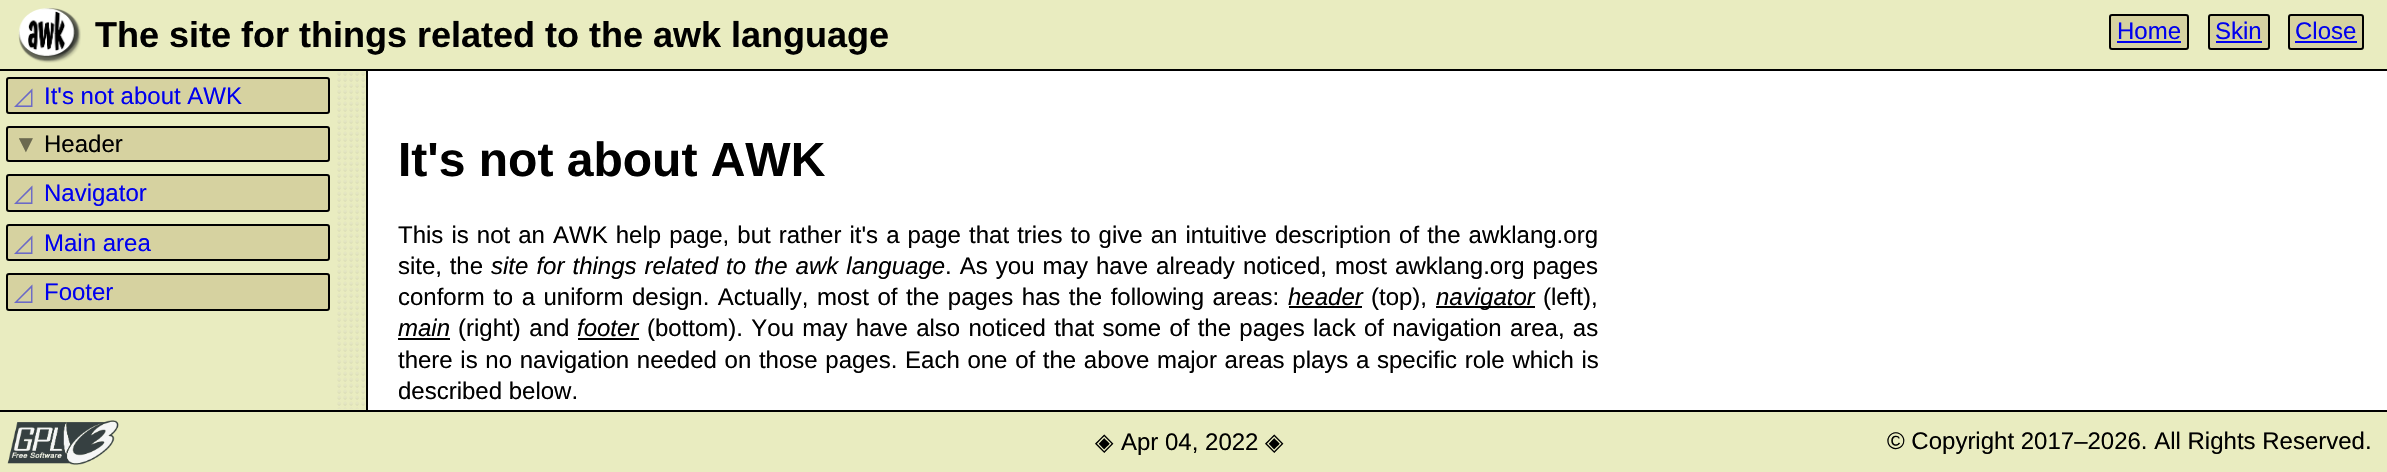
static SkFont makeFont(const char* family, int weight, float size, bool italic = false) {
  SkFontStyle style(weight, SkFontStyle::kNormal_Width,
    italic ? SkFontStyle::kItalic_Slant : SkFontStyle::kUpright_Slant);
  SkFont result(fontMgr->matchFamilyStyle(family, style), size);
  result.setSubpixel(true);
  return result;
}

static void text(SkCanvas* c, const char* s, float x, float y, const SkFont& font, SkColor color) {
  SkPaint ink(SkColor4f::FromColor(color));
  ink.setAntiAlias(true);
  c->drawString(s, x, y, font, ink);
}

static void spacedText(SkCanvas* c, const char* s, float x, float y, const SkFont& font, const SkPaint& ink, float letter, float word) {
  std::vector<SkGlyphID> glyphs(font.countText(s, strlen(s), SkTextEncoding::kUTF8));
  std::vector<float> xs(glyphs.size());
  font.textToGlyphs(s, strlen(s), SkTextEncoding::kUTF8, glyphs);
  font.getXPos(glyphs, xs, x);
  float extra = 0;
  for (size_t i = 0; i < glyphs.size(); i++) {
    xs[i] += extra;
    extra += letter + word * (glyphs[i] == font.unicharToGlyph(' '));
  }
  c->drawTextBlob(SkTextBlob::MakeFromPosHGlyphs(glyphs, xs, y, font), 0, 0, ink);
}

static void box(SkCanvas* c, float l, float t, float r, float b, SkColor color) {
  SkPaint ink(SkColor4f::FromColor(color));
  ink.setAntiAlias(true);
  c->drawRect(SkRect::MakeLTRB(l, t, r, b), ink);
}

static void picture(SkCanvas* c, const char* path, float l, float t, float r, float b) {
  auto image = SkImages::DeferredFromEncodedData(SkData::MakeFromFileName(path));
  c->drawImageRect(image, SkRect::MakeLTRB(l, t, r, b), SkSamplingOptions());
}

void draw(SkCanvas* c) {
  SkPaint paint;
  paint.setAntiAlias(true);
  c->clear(0xffe9ecc0);
  box(c, 0, 69, 2387, 71, 0xff000000);
  picture(c, "img_01.png", 18, 8, 81, 63);
  SkFont face1 = makeFont("Liberation Sans", 700, 36);
  text(c, "Τhe site for things related to the awk language", 95, 47, face1, 0xff000000);
  paint.setColor(0xffd6d2a0);
  c->drawRoundRect(SkRect::MakeLTRB(2110, 15, 2188, 49), 2, 2, paint);
  paint.setStyle(SkPaint::kStroke_Style);
  paint.setStrokeWidth(2);
  paint.setColor(0xff000000);
  c->drawRoundRect(SkRect::MakeLTRB(2110, 15, 2188, 49), 2, 2, paint);
  SkFont face2 = makeFont("Liberation Sans", 400, 24);
  text(c, "Home", 2117, 39, face2, 0xff0000ee);
  box(c, 2117, 41, 2181, 43, 0xff0000ee);
  paint.setStyle(SkPaint::kFill_Style);
  paint.setColor(0xffd6d2a0);
  c->drawRoundRect(SkRect::MakeLTRB(2209, 15, 2269, 49), 2, 2, paint);
  paint.setStyle(SkPaint::kStroke_Style);
  paint.setColor(0xff000000);
  c->drawRoundRect(SkRect::MakeLTRB(2209, 15, 2269, 49), 2, 2, paint);
  text(c, "Skin", 2215, 39, face2, 0xff0000ee);
  box(c, 2216, 41, 2262, 43, 0xff0000ee);
  paint.setStyle(SkPaint::kFill_Style);
  paint.setColor(0xffd6d2a0);
  c->drawRoundRect(SkRect::MakeLTRB(2289, 15, 2363, 49), 2, 2, paint);
  paint.setStyle(SkPaint::kStroke_Style);
  paint.setColor(0xff000000);
  c->drawRoundRect(SkRect::MakeLTRB(2289, 15, 2363, 49), 2, 2, paint);
  text(c, "Close", 2295, 39, face2, 0xff0000ee);
  box(c, 2295, 41, 2357, 43, 0xff0000ee);
  paint.setStyle(SkPaint::kFill_Style);
  paint.setColor(0xffd6d2a0);
  c->drawRoundRect(SkRect::MakeLTRB(7, 78, 329, 113), 2, 2, paint);
  paint.setStyle(SkPaint::kStroke_Style);
  paint.setColor(0xff000000);
  c->drawRoundRect(SkRect::MakeLTRB(7, 78, 329, 113), 2, 2, paint);
  SkFont face3 = makeFont("DejaVu Sans", 400, 24);
  text(c, "◿", 14, 104, face3, 0xff6b69c7);
  text(c, "It's not about AWK", 44, 104, face2, 0xff0000ee);
  paint.setStyle(SkPaint::kFill_Style);
  paint.setColor(0xffd6d2a0);
  c->drawRoundRect(SkRect::MakeLTRB(7, 127, 329, 161), 2, 2, paint);
  paint.setStyle(SkPaint::kStroke_Style);
  paint.setColor(0xff000000);
  c->drawRoundRect(SkRect::MakeLTRB(7, 127, 329, 161), 2, 2, paint);
  text(c, "▼", 14, 152, face2, 0xff6b6950);
  text(c, "Header", 44, 152, face2, 0xff000000);
  paint.setStyle(SkPaint::kFill_Style);
  paint.setColor(0xffd6d2a0);
  c->drawRoundRect(SkRect::MakeLTRB(7, 175, 329, 211), 2, 2, paint);
  paint.setStyle(SkPaint::kStroke_Style);
  paint.setColor(0xff000000);
  c->drawRoundRect(SkRect::MakeLTRB(7, 175, 329, 211), 2, 2, paint);
  text(c, "◿", 14, 201, face3, 0xff6b69c7);
  text(c, "Navigator", 44, 201, face2, 0xff0000ee);
  paint.setStyle(SkPaint::kFill_Style);
  paint.setColor(0xffd6d2a0);
  c->drawRoundRect(SkRect::MakeLTRB(7, 225, 329, 260), 2, 2, paint);
  paint.setStyle(SkPaint::kStroke_Style);
  paint.setColor(0xff000000);
  c->drawRoundRect(SkRect::MakeLTRB(7, 225, 329, 260), 2, 2, paint);
  text(c, "◿", 14, 251, face3, 0xff6b69c7);
  text(c, "Main area", 44, 251, face2, 0xff0000ee);
  paint.setStyle(SkPaint::kFill_Style);
  paint.setColor(0xffd6d2a0);
  c->drawRoundRect(SkRect::MakeLTRB(7, 274, 329, 310), 2, 2, paint);
  paint.setStyle(SkPaint::kStroke_Style);
  paint.setColor(0xff000000);
  c->drawRoundRect(SkRect::MakeLTRB(7, 274, 329, 310), 2, 2, paint);
  text(c, "◿", 14, 300, face3, 0xff6b69c7);
  text(c, "Footer", 44, 300, face2, 0xff0000ee);
  picture(c, "img_02.png", 337, 72, 365, 409);
  box(c, 366, 71, 368, 411, 0xff000000);
  box(c, 368, 71, 2387, 410, 0xffffffff);
  SkFont face4 = makeFont("Liberation Sans", 700, 48);
  text(c, "It's not about AWK", 398, 176, face4, 0xff000000);
  paint.setStyle(SkPaint::kFill_Style);
  spacedText(c, "This is not an AWK help page, but rather it's a page that tries to give an intuitive description of the awklang.org", 398, 243, face2, paint, 0, 1.4f);
  spacedText(c, "site, the", 398, 274, face2, paint, 0, 1);
  SkFont face5 = makeFont("Liberation Sans", 400, 24, true);
  spacedText(c, "site for things related to the awk language", 491, 274, face5, paint, 0, 1.4f);
  spacedText(c, ". As you may have already noticed, most awklang.org pages", 945, 274, face2, paint, 0, 1.4f);
  spacedText(c, "conform to a uniform design. Actually, most of the pages has the following areas:", 398, 305, face2, paint, 0, 1.8f);
  text(c, "header", 1288, 305, face5, 0xff000000);
  box(c, 1289, 306, 1362, 308, 0xff000000);
  text(c, "(top),", 1371, 305, face2, 0xff000000);
  box(c, 1436, 306, 1535, 308, 0xff000000);
  text(c, "navigator", 1436, 305, face5, 0xff000000);
  text(c, "(left),", 1543, 305, face2, 0xff000000);
  text(c, "main", 398, 336, face5, 0xff000000);
  box(c, 398, 338, 450, 340, 0xff000000);
  spacedText(c, "(right) and", 458, 336, face2, paint, 0, 2);
  text(c, "footer", 577, 336, face5, 0xff000000);
  box(c, 578, 338, 639, 340, 0xff000000);
  spacedText(c, "(bottom). You may have also noticed that some of the pages lack of navigation area, as", 647, 336, face2, paint, 0, 1.6f);
  spacedText(c, "there is no navigation needed on those pages. Each one of the above major areas plays a specific role which is", 398, 368, face2, paint, 0, 1);
  text(c, "described below.", 398, 399, face2, 0xff000000);
  box(c, 0, 410, 2387, 412, 0xff000000);
  picture(c, "img_03.png", 7, 420, 119, 465);
  text(c, "◈", 1095, 450, face3, 0xff000000);
  text(c, "Apr 04, 2022", 1121, 450, face2, 0xff000000);
  text(c, "◈", 1265, 450, face3, 0xff000000);
  text(c, "© Copyright 2017–2026. All Rights Reserved.", 1887, 449, face2, 0xff000000);
}
